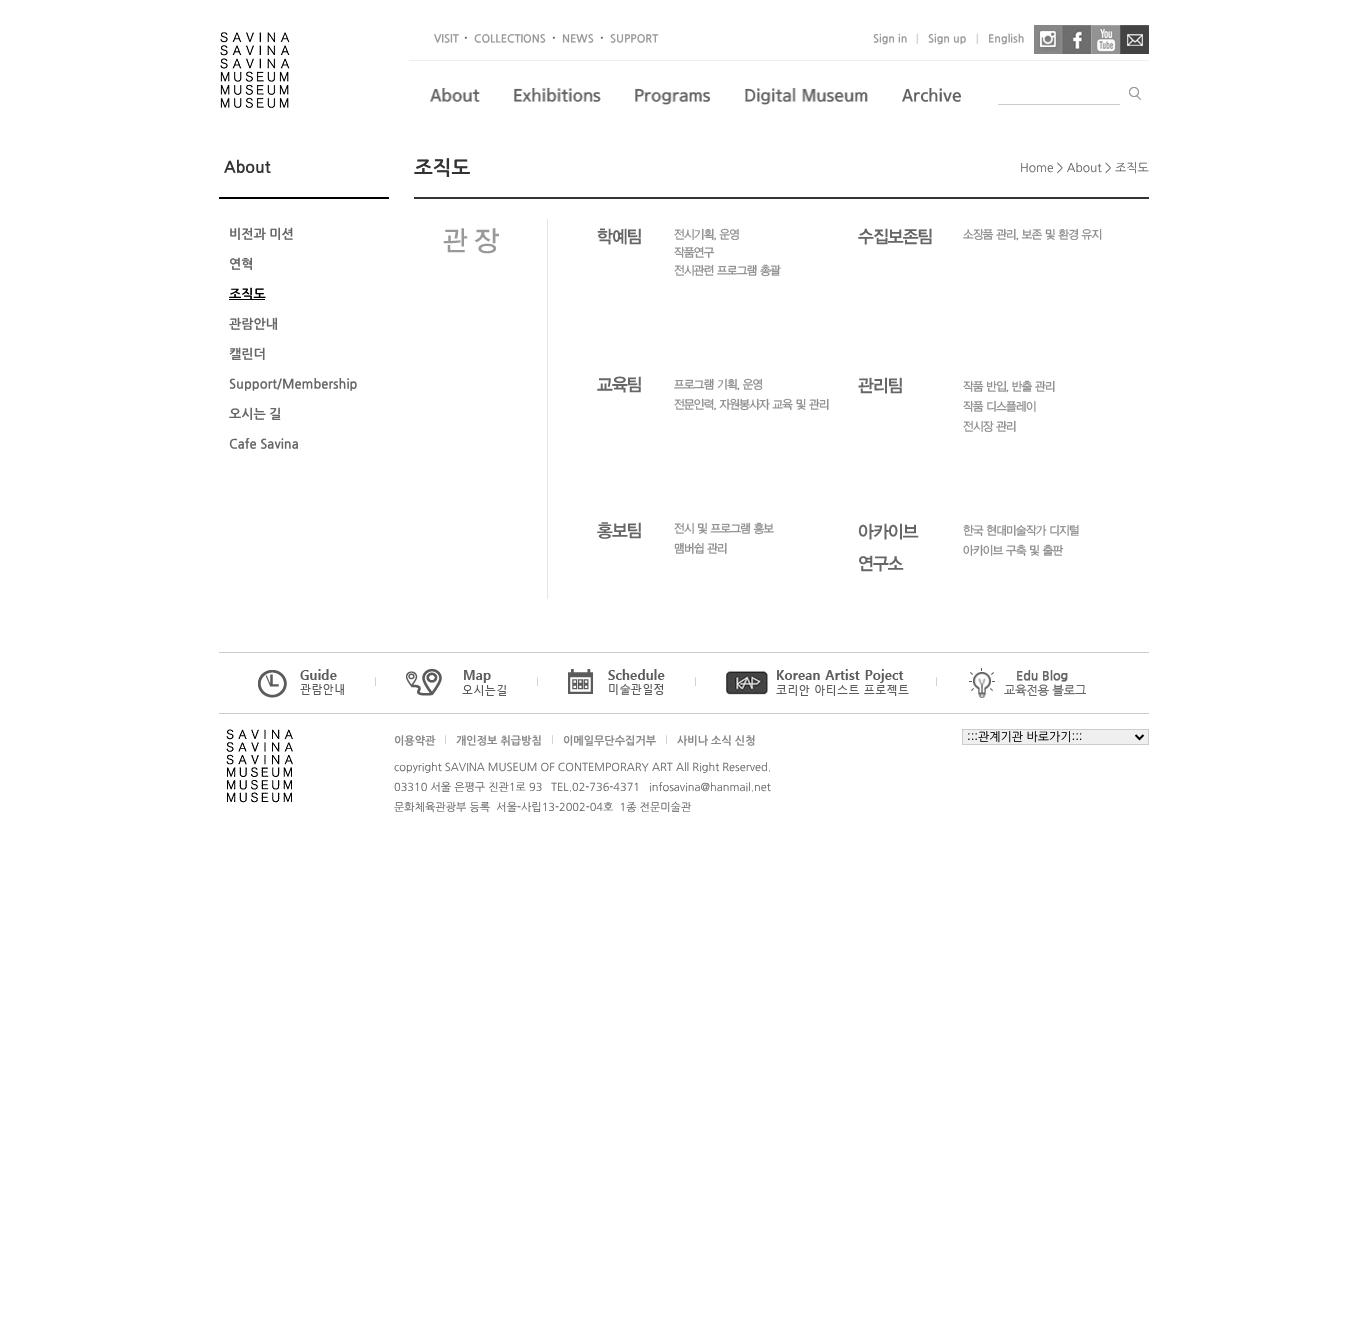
static SkFont makeFont(const char* family, int weight, float size, bool italic = false) {
  SkFontStyle style(weight, SkFontStyle::kNormal_Width,
    italic ? SkFontStyle::kItalic_Slant : SkFontStyle::kUpright_Slant);
  SkFont result(fontMgr->matchFamilyStyle(family, style), size);
  result.setSubpixel(true);
  return result;
}

static void text(SkCanvas* c, const char* s, float x, float y, const SkFont& font, SkColor color) {
  SkPaint ink(SkColor4f::FromColor(color));
  ink.setAntiAlias(true);
  c->drawString(s, x, y, font, ink);
}

static void box(SkCanvas* c, float l, float t, float r, float b, SkColor color) {
  SkPaint ink(SkColor4f::FromColor(color));
  ink.setAntiAlias(true);
  c->drawRect(SkRect::MakeLTRB(l, t, r, b), ink);
}

static void picture(SkCanvas* c, const char* path, float l, float t, float r, float b) {
  auto image = SkImages::DeferredFromEncodedData(SkData::MakeFromFileName(path));
  c->drawImageRect(image, SkRect::MakeLTRB(l, t, r, b), SkSamplingOptions());
}

void draw(SkCanvas* c) {
  SkPaint paint;
  paint.setAntiAlias(true);
  c->clear(0xffffffff);
  picture(c, "img_01.png", 219, 32, 409, 108);
  picture(c, "img_02.png", 430, 87, 480, 102);
  picture(c, "img_03.png", 514, 87, 601, 102);
  picture(c, "img_04.png", 635, 88, 711, 105);
  picture(c, "img_05.png", 745, 87, 868, 105);
  picture(c, "img_06.png", 902, 87, 962, 102);
  picture(c, "img_07.png", 1129, 87, 1141, 100);
  box(c, 998, 104, 1120, 105, 0xffcccccc);
  box(c, 409, 60, 1149, 61, 0xffeeeeee);
  SkFont face1 = makeFont("NanumGothic", 700, 11);
  text(c, "VISIT", 434, 42, face1, 0xff999999);
  SkFont face2 = makeFont("NanumGothic", 700, 13);
  text(c, "·", 464, 42, face2, 0xff666666);
  text(c, "COLLECTIONS", 474, 42, face1, 0xff999999);
  text(c, "·", 552, 42, face2, 0xff666666);
  text(c, "NEWS", 562, 42, face1, 0xff999999);
  text(c, "·", 600, 42, face2, 0xff666666);
  text(c, "SUPPORT", 610, 42, face1, 0xff999999);
  text(c, "Sign in", 873, 42, face1, 0xff999999);
  text(c, "|", 916, 42, face1, 0xffd1d4d9);
  text(c, "Sign up", 928, 42, face1, 0xff999999);
  text(c, "|", 976, 42, face1, 0xffd1d4d9);
  text(c, "English", 988, 42, face1, 0xff999999);
  picture(c, "img_08.png", 1034, 25, 1062, 54);
  picture(c, "img_09.png", 1062, 25, 1091, 54);
  picture(c, "img_10.png", 1091, 25, 1120, 54);
  picture(c, "img_11.png", 1120, 25, 1149, 54);
  box(c, 219, 197, 389, 199, 0xff000000);
  SkFont face3 = makeFont("NanumGothic", 700, 16);
  text(c, "About", 224, 172, face3, 0xff333333);
  text(c, "비전과 미션", 229, 238, face2, 0xff666666);
  text(c, "연혁", 229, 268, face2, 0xff666666);
  box(c, 229, 299, 265, 300, 0xff000000);
  text(c, "조직도", 229, 298, face2, 0xff000000);
  text(c, "관람안내", 229, 328, face2, 0xff666666);
  text(c, "캘린더", 229, 358, face2, 0xff666666);
  text(c, "Support/Membership", 229, 388, face2, 0xff666666);
  text(c, "오시는 길", 229, 418, face2, 0xff666666);
  text(c, "Cafe Savina", 229, 448, face2, 0xff666666);
  box(c, 414, 197, 1149, 199, 0xff333333);
  SkFont face4 = makeFont("NanumGothic", 700, 20);
  text(c, "조직도", 414, 174, face4, 0xff333333);
  SkFont face5 = makeFont("NanumGothic", 400, 12);
  text(c, "Home > About > 조직도", 1020, 172, face5, 0xff666666);
  picture(c, "img_12.png", 443, 219, 1102, 599);
  picture(c, "img_13.png", 226, 729, 293, 803);
  box(c, 219, 652, 1149, 653, 0xffcccccc);
  box(c, 219, 713, 1149, 714, 0xffcccccc);
  picture(c, "img_14.png", 258, 669, 344, 698);
  SkFont face6 = makeFont("NanumGothic", 400, 11);
  text(c, "l", 374, 686, face6, 0xffcccccc);
  picture(c, "img_15.png", 406, 669, 506, 696);
  text(c, "l", 536, 686, face6, 0xffcccccc);
  picture(c, "img_16.png", 568, 669, 665, 695);
  text(c, "l", 694, 686, face6, 0xffcccccc);
  picture(c, "img_17.png", 726, 669, 909, 696);
  text(c, "l", 935, 686, face6, 0xffcccccc);
  picture(c, "img_18.png", 969, 668, 1086, 698);
  text(c, "이용약관", 394, 744, face1, 0xff888888);
  text(c, "l", 444, 744, face6, 0xffcccccc);
  text(c, "개인정보 취급방침", 456, 744, face1, 0xff888888);
  text(c, "l", 551, 744, face6, 0xffcccccc);
  text(c, "이메일무단수집거부", 563, 744, face1, 0xff888888);
  text(c, "l", 665, 744, face6, 0xffcccccc);
  text(c, "사비나 소식 신청", 677, 744, face1, 0xff888888);
  paint.setColor(0xffefefef);
  c->drawRect(SkRect::MakeLTRB(962.5f, 729.5f, 1148.5f, 744.5f), paint);
  paint.setStyle(SkPaint::kStroke_Style);
  paint.setStrokeWidth(1);
  paint.setColor(0xffcccccc);
  c->drawRect(SkRect::MakeLTRB(962.5f, 729.5f, 1148.5f, 744.5f), paint);
  paint.setStrokeWidth(2);
  paint.setColor(0xff000000);
  c->drawPath(SkPathBuilder().moveTo(1135.5f, 735).lineTo(1139.5f, 739).lineTo(1143.5f, 735).detach(), paint);
  text(c, ":::관계기관 바로가기:::", 967, 741, face5, 0xff000000);
  text(c, "copyright SAVINA MUSEUM OF CONTEMPORARY ART All Right Reserved.", 394, 771, face6, 0xff666666);
  text(c, "03310 서울 은평구 진관1로 93", 394, 791, face6, 0xff666666);
  text(c, "TEL.02-736-4371   infosavina@hanmail.net", 551, 791, face6, 0xff666666);
  text(c, "문화체육관광부 등록  서울-사립13-2002-04호  1종 전문미술관", 394, 811, face6, 0xff666666);
}
